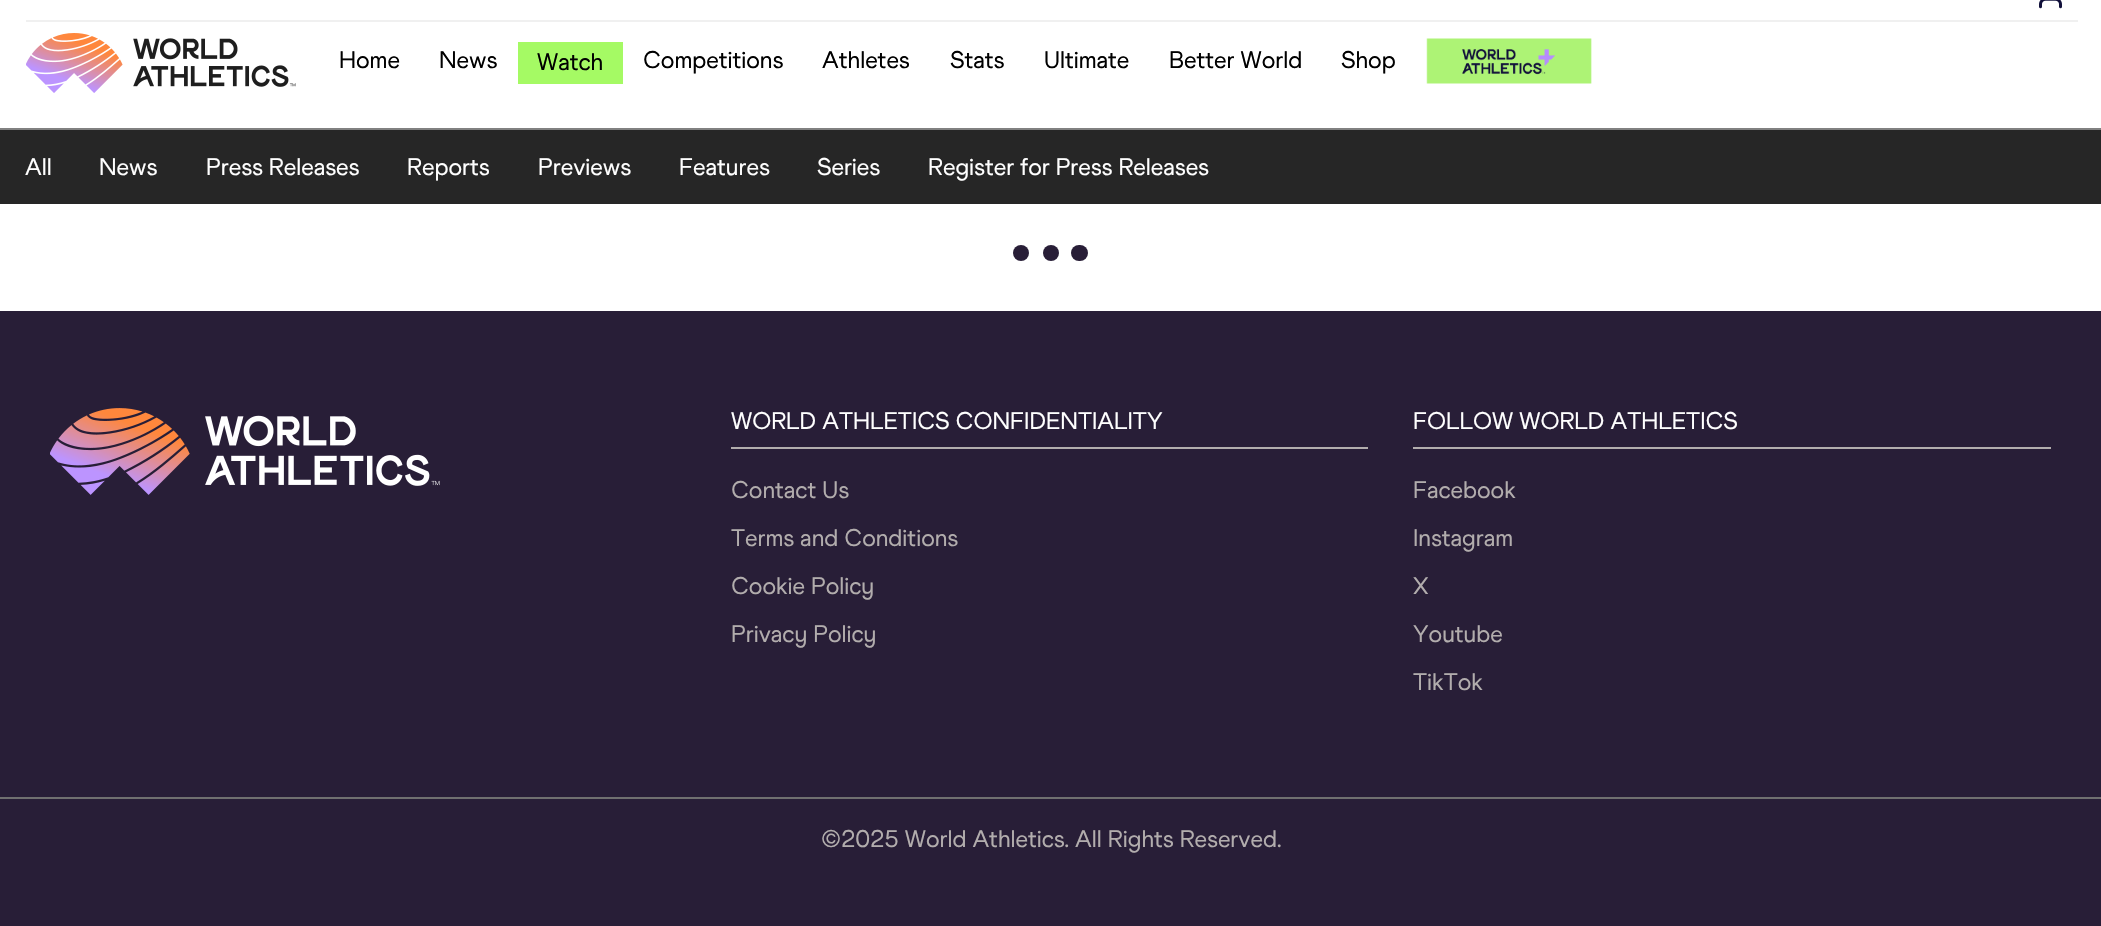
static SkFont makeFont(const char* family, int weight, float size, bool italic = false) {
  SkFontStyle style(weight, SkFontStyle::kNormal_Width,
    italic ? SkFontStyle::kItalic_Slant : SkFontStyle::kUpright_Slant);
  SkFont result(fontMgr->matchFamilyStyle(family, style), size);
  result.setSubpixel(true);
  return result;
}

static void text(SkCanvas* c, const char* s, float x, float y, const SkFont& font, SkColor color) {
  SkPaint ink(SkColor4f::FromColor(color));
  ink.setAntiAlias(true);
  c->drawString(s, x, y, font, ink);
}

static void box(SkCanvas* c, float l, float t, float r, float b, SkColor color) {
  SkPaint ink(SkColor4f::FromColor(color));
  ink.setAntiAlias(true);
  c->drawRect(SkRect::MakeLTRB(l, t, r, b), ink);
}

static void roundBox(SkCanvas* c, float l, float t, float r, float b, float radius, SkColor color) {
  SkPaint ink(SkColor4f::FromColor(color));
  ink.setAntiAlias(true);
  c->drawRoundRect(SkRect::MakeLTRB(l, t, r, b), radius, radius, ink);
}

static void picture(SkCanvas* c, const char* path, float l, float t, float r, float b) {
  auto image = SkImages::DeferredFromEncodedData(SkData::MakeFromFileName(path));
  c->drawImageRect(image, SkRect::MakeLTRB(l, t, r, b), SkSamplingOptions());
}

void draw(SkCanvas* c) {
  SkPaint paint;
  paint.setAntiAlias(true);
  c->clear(0xffffffff);
  box(c, 26, 20, 2078, 22, 0xfff0f0f0);
  picture(c, "img_01.png", 2039, 0, 2062, 9);
  picture(c, "img_02.png", 26, 33, 296, 93);
  SkFont face1 = makeFont("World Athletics", 400, 24);
  text(c, "Home", 339, 68, face1, 0xff000000);
  text(c, "News", 439, 68, face1, 0xff000000);
  box(c, 518, 42, 623, 84, 0xffa5fa64);
  text(c, "Watch", 537, 70, face1, 0xff000000);
  text(c, "Competitions", 643, 68, face1, 0xff000000);
  text(c, "Athletes", 822, 68, face1, 0xff000000);
  text(c, "Stats", 950, 68, face1, 0xff000000);
  text(c, "Ultimate", 1044, 68, face1, 0xff000000);
  text(c, "Better World", 1169, 68, face1, 0xff000000);
  text(c, "Shop", 1341, 68, face1, 0xff000000);
  picture(c, "img_03.png", 1426, 38, 1592, 84);
  box(c, 0, 130, 2101, 204, 0xff262626);
  box(c, 0, 128, 2101, 130, 0xff818181);
  text(c, "All", 25, 175, face1, 0xffffffff);
  text(c, "News", 99, 175, face1, 0xffffffff);
  text(c, "Press Releases", 206, 175, face1, 0xffffffff);
  text(c, "Reports", 407, 175, face1, 0xffffffff);
  text(c, "Previews", 538, 175, face1, 0xffffffff);
  text(c, "Features", 679, 175, face1, 0xffffffff);
  text(c, "Series", 817, 175, face1, 0xffffffff);
  text(c, "Register for Press Releases", 928, 175, face1, 0xffffffff);
  paint.setColor(0xff281e37);
  c->drawCircle(1021, 253, 8, paint);
  c->drawCircle(1051, 253, 8, paint);
  roundBox(c, 1071, 245, 1088, 261, 8, 0xff281e37);
  box(c, 0, 311, 2101, 926, 0xff281e37);
  picture(c, "img_04.png", 50, 408, 440, 495);
  box(c, 731, 447, 1368, 449, 0xffb2adad);
  text(c, "WORLD ATHLETICS CONFIDENTIALITY", 731, 429, face1, 0xffffffff);
  text(c, "Contact Us", 731, 498, face1, 0xffb2adad);
  text(c, "Terms and Conditions", 731, 546, face1, 0xffb2adad);
  text(c, "Cookie Policy", 731, 594, face1, 0xffb2adad);
  text(c, "Privacy Policy", 731, 642, face1, 0xffb2adad);
  box(c, 1413, 447, 2051, 449, 0xffb2adad);
  text(c, "FOLLOW WORLD ATHLETICS", 1413, 429, face1, 0xffffffff);
  text(c, "Facebook", 1413, 498, face1, 0xffb2adad);
  text(c, "Instagram", 1413, 546, face1, 0xffb2adad);
  text(c, "X", 1413, 594, face1, 0xffb2adad);
  text(c, "Youtube", 1413, 642, face1, 0xffb2adad);
  text(c, "TikTok", 1413, 690, face1, 0xffb2adad);
  box(c, 0, 797, 2101, 799, 0xff707070);
  text(c, "©2025 World Athletics. All Rights Reserved.", 821, 847, face1, 0xffb2adad);
}
